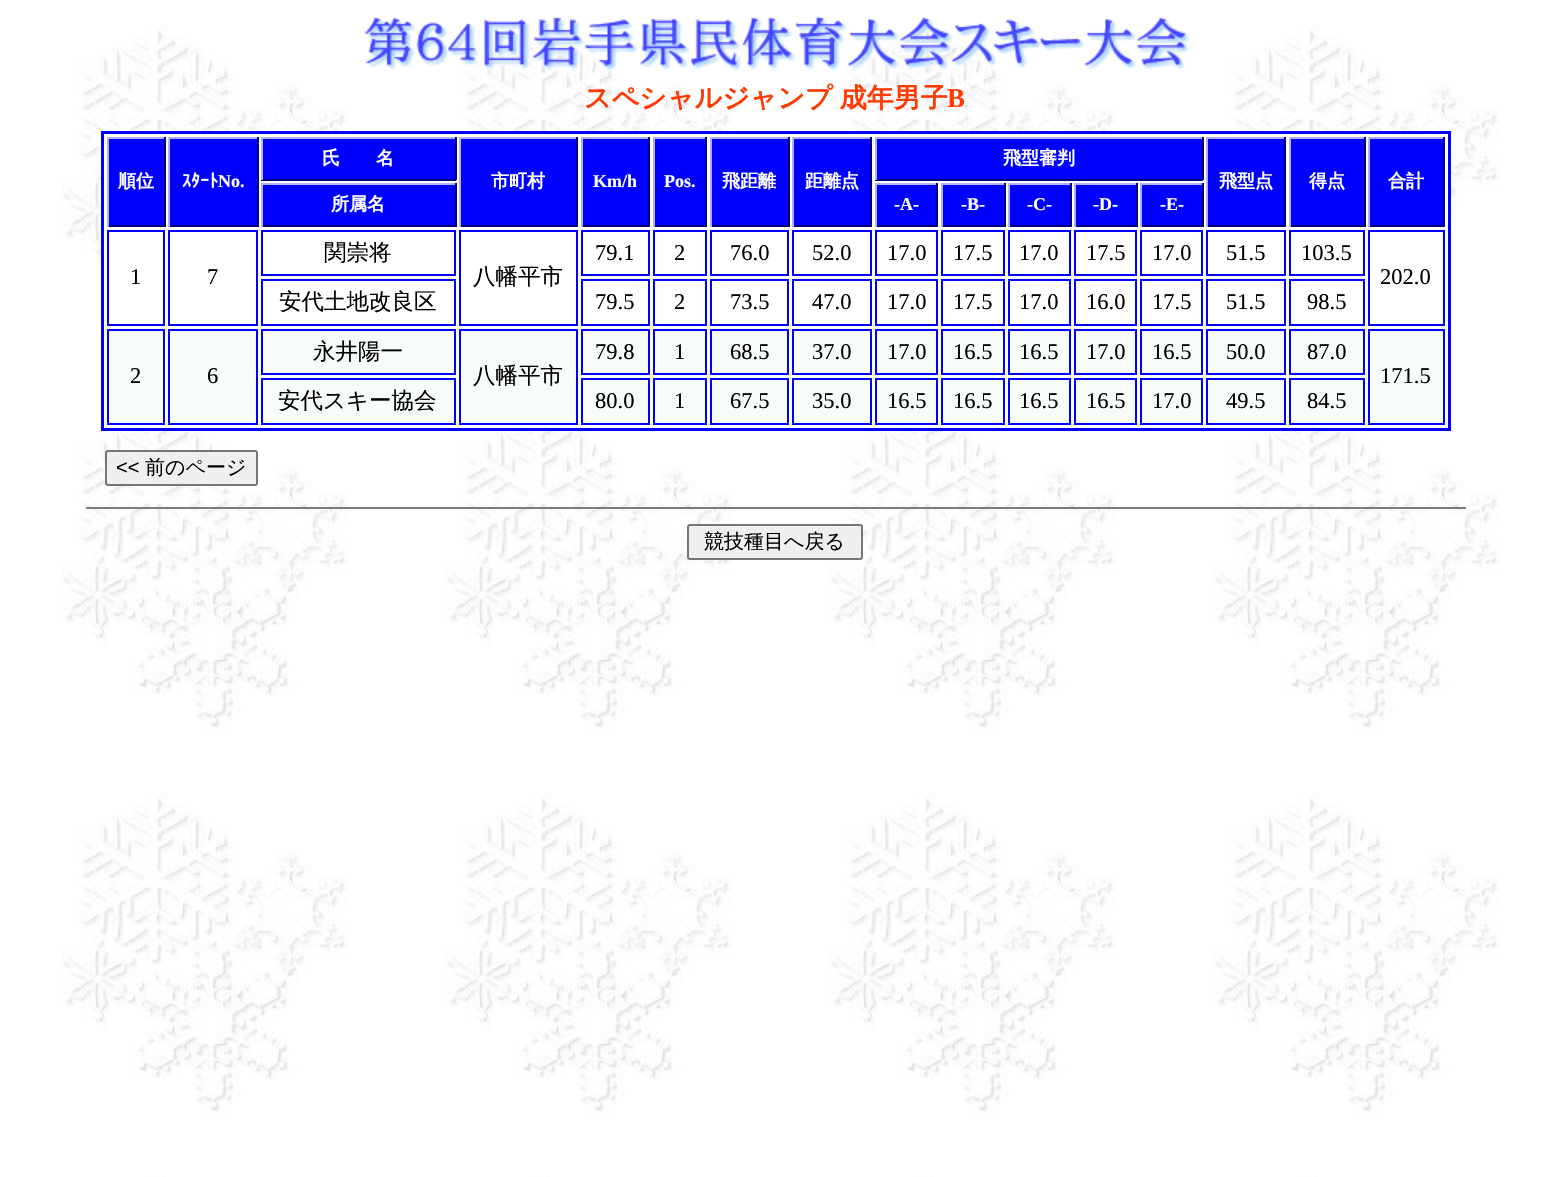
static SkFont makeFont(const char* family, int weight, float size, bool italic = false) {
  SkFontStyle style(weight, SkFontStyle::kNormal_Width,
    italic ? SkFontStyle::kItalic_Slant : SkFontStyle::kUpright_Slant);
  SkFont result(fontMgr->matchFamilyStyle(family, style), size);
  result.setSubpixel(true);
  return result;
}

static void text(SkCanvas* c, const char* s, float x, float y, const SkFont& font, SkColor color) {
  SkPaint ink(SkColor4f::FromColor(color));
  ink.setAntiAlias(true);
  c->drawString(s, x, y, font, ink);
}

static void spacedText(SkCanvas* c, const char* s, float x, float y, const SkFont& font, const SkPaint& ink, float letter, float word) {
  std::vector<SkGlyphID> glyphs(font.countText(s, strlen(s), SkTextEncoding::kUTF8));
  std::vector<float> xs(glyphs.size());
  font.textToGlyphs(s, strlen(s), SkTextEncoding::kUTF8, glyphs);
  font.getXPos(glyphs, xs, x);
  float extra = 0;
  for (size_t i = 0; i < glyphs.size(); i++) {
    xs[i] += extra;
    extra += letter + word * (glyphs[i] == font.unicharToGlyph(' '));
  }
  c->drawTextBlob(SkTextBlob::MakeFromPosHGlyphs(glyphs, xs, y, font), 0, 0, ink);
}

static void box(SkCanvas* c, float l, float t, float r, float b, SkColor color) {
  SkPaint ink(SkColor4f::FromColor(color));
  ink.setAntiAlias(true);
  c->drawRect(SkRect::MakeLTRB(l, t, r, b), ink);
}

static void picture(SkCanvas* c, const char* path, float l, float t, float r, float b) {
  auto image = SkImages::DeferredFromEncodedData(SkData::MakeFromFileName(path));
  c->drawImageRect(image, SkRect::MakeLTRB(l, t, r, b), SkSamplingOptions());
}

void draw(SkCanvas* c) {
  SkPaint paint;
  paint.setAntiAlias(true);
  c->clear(0xffffffff);
  picture(c, "img_01.png", 61, 24, 1500, 1177);
  picture(c, "img_02.png", 364, 16, 1190, 71);
  SkFont face1 = makeFont("WenQuanYi Zen Hei", 700, 27);
  paint.setColor(0xffff3900);
  spacedText(c, "スペシャルジャンプ 成年男子", 584, 107, face1, paint, 0, -1);
  SkFont face2 = makeFont("Liberation Serif", 700, 27);
  text(c, "B", 947, 107, face2, 0xffff3900);
  paint.setColor(0xffffffff);
  c->drawRect(SkRect::MakeLTRB(102.5f, 132.5f, 1449.5f, 429.5f), paint);
  paint.setStyle(SkPaint::kStroke_Style);
  paint.setStrokeWidth(3);
  paint.setColor(0xff0000ff);
  c->drawRect(SkRect::MakeLTRB(102.5f, 132.5f, 1449.5f, 429.5f), paint);
  box(c, 263, 139, 455, 179, 0xff0000ff);
  box(c, 261, 137, 456, 139, 0xffb0b0ff);
  box(c, 455, 137, 457, 180, 0xff000080);
  box(c, 261, 179, 456, 181, 0xff000080);
  box(c, 261, 137, 263, 180, 0xffb0b0ff);
  SkFont face3 = makeFont("WenQuanYi Zen Hei", 700, 18);
  text(c, "氏　　名", 322, 164, face3, 0xffffffff);
  box(c, 877, 139, 1202, 179, 0xff0000ff);
  box(c, 875, 137, 1203, 139, 0xffb0b0ff);
  box(c, 1202, 137, 1204, 180, 0xff000080);
  box(c, 875, 179, 1203, 181, 0xff000080);
  box(c, 875, 137, 877, 180, 0xffb0b0ff);
  text(c, "飛型審判", 1003, 164, face3, 0xffffffff);
  box(c, 109, 139, 164, 225, 0xff0000ff);
  box(c, 107, 137, 165, 139, 0xffb0b0ff);
  box(c, 164, 137, 166, 227, 0xff000080);
  box(c, 107, 225, 165, 227, 0xff000080);
  box(c, 107, 137, 109, 227, 0xffb0b0ff);
  text(c, "順位", 118, 187, face3, 0xffffffff);
  box(c, 170, 139, 257, 225, 0xff0000ff);
  box(c, 168, 137, 258, 139, 0xffb0b0ff);
  box(c, 257, 137, 259, 227, 0xff000080);
  box(c, 168, 225, 258, 227, 0xff000080);
  box(c, 168, 137, 170, 227, 0xffb0b0ff);
  SkFont face4 = makeFont("IPAGothic", 700, 18);
  text(c, "ｽﾀｰﾄ", 182, 187, face4, 0xffffffff);
  SkFont face5 = makeFont("Liberation Serif", 700, 18);
  text(c, "No.", 218, 187, face5, 0xffffffff);
  box(c, 461, 139, 576, 225, 0xff0000ff);
  box(c, 459, 137, 578, 139, 0xffb0b0ff);
  box(c, 576, 137, 578, 227, 0xff000080);
  box(c, 459, 225, 578, 227, 0xff000080);
  box(c, 459, 137, 461, 227, 0xffb0b0ff);
  text(c, "市町村", 491, 187, face3, 0xffffffff);
  box(c, 583, 139, 648, 225, 0xff0000ff);
  box(c, 581, 137, 650, 139, 0xffb0b0ff);
  box(c, 648, 137, 650, 227, 0xff000080);
  box(c, 581, 225, 650, 227, 0xff000080);
  box(c, 581, 137, 583, 227, 0xffb0b0ff);
  text(c, "Km/h", 593, 187, face5, 0xffffffff);
  box(c, 655, 139, 705, 225, 0xff0000ff);
  box(c, 653, 137, 707, 139, 0xffb0b0ff);
  box(c, 705, 137, 707, 227, 0xff000080);
  box(c, 653, 225, 707, 227, 0xff000080);
  box(c, 653, 137, 655, 227, 0xffb0b0ff);
  text(c, "Pos.", 664, 187, face5, 0xffffffff);
  box(c, 712, 139, 788, 225, 0xff0000ff);
  box(c, 710, 137, 789, 139, 0xffb0b0ff);
  box(c, 788, 137, 790, 227, 0xff000080);
  box(c, 710, 225, 789, 227, 0xff000080);
  box(c, 710, 137, 712, 227, 0xffb0b0ff);
  text(c, "飛距離", 722, 187, face3, 0xffffffff);
  box(c, 794, 139, 870, 225, 0xff0000ff);
  box(c, 792, 137, 872, 139, 0xffb0b0ff);
  box(c, 870, 137, 872, 227, 0xff000080);
  box(c, 792, 225, 872, 227, 0xff000080);
  box(c, 792, 137, 794, 227, 0xffb0b0ff);
  text(c, "距離点", 805, 187, face3, 0xffffffff);
  box(c, 1208, 139, 1284, 225, 0xff0000ff);
  box(c, 1206, 137, 1286, 139, 0xffb0b0ff);
  box(c, 1284, 137, 1286, 227, 0xff000080);
  box(c, 1206, 225, 1286, 227, 0xff000080);
  box(c, 1206, 137, 1208, 227, 0xffb0b0ff);
  text(c, "飛型点", 1219, 187, face3, 0xffffffff);
  box(c, 1291, 139, 1364, 225, 0xff0000ff);
  box(c, 1289, 137, 1365, 139, 0xffb0b0ff);
  box(c, 1364, 137, 1366, 227, 0xff000080);
  box(c, 1289, 225, 1365, 227, 0xff000080);
  box(c, 1289, 137, 1291, 227, 0xffb0b0ff);
  text(c, "得点", 1309, 187, face3, 0xffffffff);
  box(c, 1370, 139, 1443, 225, 0xff0000ff);
  box(c, 1368, 137, 1445, 139, 0xffb0b0ff);
  box(c, 1443, 137, 1445, 227, 0xff000080);
  box(c, 1368, 225, 1445, 227, 0xff000080);
  box(c, 1368, 137, 1370, 227, 0xffb0b0ff);
  text(c, "合計", 1388, 187, face3, 0xffffffff);
  box(c, 263, 185, 455, 225, 0xff0000ff);
  box(c, 261, 183, 456, 185, 0xffb0b0ff);
  box(c, 455, 183, 457, 227, 0xff000080);
  box(c, 261, 225, 456, 227, 0xff000080);
  box(c, 261, 183, 263, 227, 0xffb0b0ff);
  text(c, "所属名", 331, 210, face3, 0xffffffff);
  box(c, 877, 185, 936, 225, 0xff0000ff);
  box(c, 875, 183, 938, 185, 0xffb0b0ff);
  box(c, 936, 183, 938, 227, 0xff000080);
  box(c, 875, 225, 938, 227, 0xff000080);
  box(c, 875, 183, 877, 227, 0xffb0b0ff);
  text(c, "-A-", 894, 210, face5, 0xffffffff);
  box(c, 943, 185, 1004, 225, 0xff0000ff);
  box(c, 941, 183, 1005, 185, 0xffb0b0ff);
  box(c, 1004, 183, 1006, 227, 0xff000080);
  box(c, 941, 225, 1005, 227, 0xff000080);
  box(c, 941, 183, 943, 227, 0xffb0b0ff);
  text(c, "-B-", 961, 210, face5, 0xffffffff);
  box(c, 1010, 185, 1070, 225, 0xff0000ff);
  box(c, 1008, 183, 1071, 185, 0xffb0b0ff);
  box(c, 1070, 183, 1072, 227, 0xff000080);
  box(c, 1008, 225, 1071, 227, 0xff000080);
  box(c, 1008, 183, 1010, 227, 0xffb0b0ff);
  text(c, "-C-", 1027, 210, face5, 0xffffffff);
  box(c, 1076, 185, 1136, 225, 0xff0000ff);
  box(c, 1074, 183, 1137, 185, 0xffb0b0ff);
  box(c, 1136, 183, 1138, 227, 0xff000080);
  box(c, 1074, 225, 1137, 227, 0xff000080);
  box(c, 1074, 183, 1076, 227, 0xffb0b0ff);
  text(c, "-D-", 1093, 210, face5, 0xffffffff);
  box(c, 1142, 185, 1202, 225, 0xff0000ff);
  box(c, 1140, 183, 1203, 185, 0xffb0b0ff);
  box(c, 1202, 183, 1204, 227, 0xff000080);
  box(c, 1140, 225, 1203, 227, 0xff000080);
  box(c, 1140, 183, 1142, 227, 0xffb0b0ff);
  text(c, "-E-", 1160, 210, face5, 0xffffffff);
  paint.setStrokeWidth(2);
  c->drawRect(SkRect::MakeLTRB(262, 231, 455, 275), paint);
  SkFont face6 = makeFont("WenQuanYi Zen Hei", 500, 22.5f);
  text(c, "関崇将", 324, 260, face6, 0xff000000);
  c->drawRect(SkRect::MakeLTRB(582, 231, 649, 275), paint);
  SkFont face7 = makeFont("Liberation Serif", 400, 22.5f);
  text(c, "79.1", 595, 260, face7, 0xff000000);
  c->drawRect(SkRect::MakeLTRB(654, 231, 706, 275), paint);
  text(c, "2", 674, 260, face7, 0xff000000);
  c->drawRect(SkRect::MakeLTRB(711, 231, 788, 275), paint);
  text(c, "76.0", 730, 260, face7, 0xff000000);
  c->drawRect(SkRect::MakeLTRB(793, 231, 871, 275), paint);
  text(c, "52.0", 812, 260, face7, 0xff000000);
  c->drawRect(SkRect::MakeLTRB(876, 231, 937, 275), paint);
  text(c, "17.0", 887, 260, face7, 0xff000000);
  c->drawRect(SkRect::MakeLTRB(942, 231, 1004, 275), paint);
  text(c, "17.5", 953, 260, face7, 0xff000000);
  c->drawRect(SkRect::MakeLTRB(1009, 231, 1070, 275), paint);
  text(c, "17.0", 1019, 260, face7, 0xff000000);
  c->drawRect(SkRect::MakeLTRB(1075, 231, 1136, 275), paint);
  text(c, "17.5", 1086, 260, face7, 0xff000000);
  c->drawRect(SkRect::MakeLTRB(1141, 231, 1202, 275), paint);
  text(c, "17.0", 1152, 260, face7, 0xff000000);
  c->drawRect(SkRect::MakeLTRB(1207, 231, 1285, 275), paint);
  text(c, "51.5", 1226, 260, face7, 0xff000000);
  c->drawRect(SkRect::MakeLTRB(1290, 231, 1364, 275), paint);
  text(c, "103.5", 1301, 260, face7, 0xff000000);
  c->drawRect(SkRect::MakeLTRB(108, 231, 164, 325), paint);
  text(c, "1", 130, 284, face7, 0xff000000);
  c->drawRect(SkRect::MakeLTRB(169, 231, 257, 325), paint);
  text(c, "7", 207, 284, face7, 0xff000000);
  c->drawRect(SkRect::MakeLTRB(460, 231, 577, 325), paint);
  text(c, "八幡平市", 473, 284, face6, 0xff000000);
  c->drawRect(SkRect::MakeLTRB(1369, 231, 1444, 325), paint);
  text(c, "202.0", 1380, 284, face7, 0xff000000);
  c->drawRect(SkRect::MakeLTRB(262, 280, 455, 325), paint);
  text(c, "安代土地改良区", 279, 309, face6, 0xff000000);
  c->drawRect(SkRect::MakeLTRB(582, 280, 649, 325), paint);
  text(c, "79.5", 595, 309, face7, 0xff000000);
  c->drawRect(SkRect::MakeLTRB(654, 280, 706, 325), paint);
  text(c, "2", 674, 309, face7, 0xff000000);
  c->drawRect(SkRect::MakeLTRB(711, 280, 788, 325), paint);
  text(c, "73.5", 730, 309, face7, 0xff000000);
  c->drawRect(SkRect::MakeLTRB(793, 280, 871, 325), paint);
  text(c, "47.0", 812, 309, face7, 0xff000000);
  c->drawRect(SkRect::MakeLTRB(876, 280, 937, 325), paint);
  text(c, "17.0", 887, 309, face7, 0xff000000);
  c->drawRect(SkRect::MakeLTRB(942, 280, 1004, 325), paint);
  text(c, "17.5", 953, 309, face7, 0xff000000);
  c->drawRect(SkRect::MakeLTRB(1009, 280, 1070, 325), paint);
  text(c, "17.0", 1019, 309, face7, 0xff000000);
  c->drawRect(SkRect::MakeLTRB(1075, 280, 1136, 325), paint);
  text(c, "16.0", 1086, 309, face7, 0xff000000);
  c->drawRect(SkRect::MakeLTRB(1141, 280, 1202, 325), paint);
  text(c, "17.5", 1152, 309, face7, 0xff000000);
  c->drawRect(SkRect::MakeLTRB(1207, 280, 1285, 325), paint);
  text(c, "51.5", 1226, 309, face7, 0xff000000);
  c->drawRect(SkRect::MakeLTRB(1290, 280, 1364, 325), paint);
  text(c, "98.5", 1307, 309, face7, 0xff000000);
  paint.setStyle(SkPaint::kFill_Style);
  paint.setColor(0xfff8fcf9);
  c->drawRect(SkRect::MakeLTRB(262, 330, 455, 374), paint);
  paint.setStyle(SkPaint::kStroke_Style);
  paint.setColor(0xff0000ff);
  c->drawRect(SkRect::MakeLTRB(262, 330, 455, 374), paint);
  text(c, "永井陽一", 313, 359, face6, 0xff000000);
  paint.setStyle(SkPaint::kFill_Style);
  paint.setColor(0xfff8fcf9);
  c->drawRect(SkRect::MakeLTRB(582, 330, 649, 374), paint);
  paint.setStyle(SkPaint::kStroke_Style);
  paint.setColor(0xff0000ff);
  c->drawRect(SkRect::MakeLTRB(582, 330, 649, 374), paint);
  text(c, "79.8", 595, 359, face7, 0xff000000);
  paint.setStyle(SkPaint::kFill_Style);
  paint.setColor(0xfff8fcf9);
  c->drawRect(SkRect::MakeLTRB(654, 330, 706, 374), paint);
  paint.setStyle(SkPaint::kStroke_Style);
  paint.setColor(0xff0000ff);
  c->drawRect(SkRect::MakeLTRB(654, 330, 706, 374), paint);
  text(c, "1", 674, 359, face7, 0xff000000);
  paint.setStyle(SkPaint::kFill_Style);
  paint.setColor(0xfff8fcf9);
  c->drawRect(SkRect::MakeLTRB(711, 330, 788, 374), paint);
  paint.setStyle(SkPaint::kStroke_Style);
  paint.setColor(0xff0000ff);
  c->drawRect(SkRect::MakeLTRB(711, 330, 788, 374), paint);
  text(c, "68.5", 730, 359, face7, 0xff000000);
  paint.setStyle(SkPaint::kFill_Style);
  paint.setColor(0xfff8fcf9);
  c->drawRect(SkRect::MakeLTRB(793, 330, 871, 374), paint);
  paint.setStyle(SkPaint::kStroke_Style);
  paint.setColor(0xff0000ff);
  c->drawRect(SkRect::MakeLTRB(793, 330, 871, 374), paint);
  text(c, "37.0", 812, 359, face7, 0xff000000);
  paint.setStyle(SkPaint::kFill_Style);
  paint.setColor(0xfff8fcf9);
  c->drawRect(SkRect::MakeLTRB(876, 330, 937, 374), paint);
  paint.setStyle(SkPaint::kStroke_Style);
  paint.setColor(0xff0000ff);
  c->drawRect(SkRect::MakeLTRB(876, 330, 937, 374), paint);
  text(c, "17.0", 887, 359, face7, 0xff000000);
  paint.setStyle(SkPaint::kFill_Style);
  paint.setColor(0xfff8fcf9);
  c->drawRect(SkRect::MakeLTRB(942, 330, 1004, 374), paint);
  paint.setStyle(SkPaint::kStroke_Style);
  paint.setColor(0xff0000ff);
  c->drawRect(SkRect::MakeLTRB(942, 330, 1004, 374), paint);
  text(c, "16.5", 953, 359, face7, 0xff000000);
  paint.setStyle(SkPaint::kFill_Style);
  paint.setColor(0xfff8fcf9);
  c->drawRect(SkRect::MakeLTRB(1009, 330, 1070, 374), paint);
  paint.setStyle(SkPaint::kStroke_Style);
  paint.setColor(0xff0000ff);
  c->drawRect(SkRect::MakeLTRB(1009, 330, 1070, 374), paint);
  text(c, "16.5", 1019, 359, face7, 0xff000000);
  paint.setStyle(SkPaint::kFill_Style);
  paint.setColor(0xfff8fcf9);
  c->drawRect(SkRect::MakeLTRB(1075, 330, 1136, 374), paint);
  paint.setStyle(SkPaint::kStroke_Style);
  paint.setColor(0xff0000ff);
  c->drawRect(SkRect::MakeLTRB(1075, 330, 1136, 374), paint);
  text(c, "17.0", 1086, 359, face7, 0xff000000);
  paint.setStyle(SkPaint::kFill_Style);
  paint.setColor(0xfff8fcf9);
  c->drawRect(SkRect::MakeLTRB(1141, 330, 1202, 374), paint);
  paint.setStyle(SkPaint::kStroke_Style);
  paint.setColor(0xff0000ff);
  c->drawRect(SkRect::MakeLTRB(1141, 330, 1202, 374), paint);
  text(c, "16.5", 1152, 359, face7, 0xff000000);
  paint.setStyle(SkPaint::kFill_Style);
  paint.setColor(0xfff8fcf9);
  c->drawRect(SkRect::MakeLTRB(1207, 330, 1285, 374), paint);
  paint.setStyle(SkPaint::kStroke_Style);
  paint.setColor(0xff0000ff);
  c->drawRect(SkRect::MakeLTRB(1207, 330, 1285, 374), paint);
  text(c, "50.0", 1226, 359, face7, 0xff000000);
  paint.setStyle(SkPaint::kFill_Style);
  paint.setColor(0xfff8fcf9);
  c->drawRect(SkRect::MakeLTRB(1290, 330, 1364, 374), paint);
  paint.setStyle(SkPaint::kStroke_Style);
  paint.setColor(0xff0000ff);
  c->drawRect(SkRect::MakeLTRB(1290, 330, 1364, 374), paint);
  text(c, "87.0", 1307, 359, face7, 0xff000000);
  paint.setStyle(SkPaint::kFill_Style);
  paint.setColor(0xfff8fcf9);
  c->drawRect(SkRect::MakeLTRB(108, 330, 164, 424), paint);
  paint.setStyle(SkPaint::kStroke_Style);
  paint.setColor(0xff0000ff);
  c->drawRect(SkRect::MakeLTRB(108, 330, 164, 424), paint);
  text(c, "2", 130, 383, face7, 0xff000000);
  paint.setStyle(SkPaint::kFill_Style);
  paint.setColor(0xfff8fcf9);
  c->drawRect(SkRect::MakeLTRB(169, 330, 257, 424), paint);
  paint.setStyle(SkPaint::kStroke_Style);
  paint.setColor(0xff0000ff);
  c->drawRect(SkRect::MakeLTRB(169, 330, 257, 424), paint);
  text(c, "6", 207, 383, face7, 0xff000000);
  paint.setStyle(SkPaint::kFill_Style);
  paint.setColor(0xfff8fcf9);
  c->drawRect(SkRect::MakeLTRB(460, 330, 577, 424), paint);
  paint.setStyle(SkPaint::kStroke_Style);
  paint.setColor(0xff0000ff);
  c->drawRect(SkRect::MakeLTRB(460, 330, 577, 424), paint);
  text(c, "八幡平市", 473, 383, face6, 0xff000000);
  paint.setStyle(SkPaint::kFill_Style);
  paint.setColor(0xfff8fcf9);
  c->drawRect(SkRect::MakeLTRB(1369, 330, 1444, 424), paint);
  paint.setStyle(SkPaint::kStroke_Style);
  paint.setColor(0xff0000ff);
  c->drawRect(SkRect::MakeLTRB(1369, 330, 1444, 424), paint);
  text(c, "171.5", 1380, 383, face7, 0xff000000);
  paint.setStyle(SkPaint::kFill_Style);
  paint.setColor(0xfff8fcf9);
  c->drawRect(SkRect::MakeLTRB(262, 379, 455, 424), paint);
  paint.setStyle(SkPaint::kStroke_Style);
  paint.setColor(0xff0000ff);
  c->drawRect(SkRect::MakeLTRB(262, 379, 455, 424), paint);
  text(c, "安代スキー協会", 278, 408, face6, 0xff000000);
  paint.setStyle(SkPaint::kFill_Style);
  paint.setColor(0xfff8fcf9);
  c->drawRect(SkRect::MakeLTRB(582, 379, 649, 424), paint);
  paint.setStyle(SkPaint::kStroke_Style);
  paint.setColor(0xff0000ff);
  c->drawRect(SkRect::MakeLTRB(582, 379, 649, 424), paint);
  text(c, "80.0", 595, 408, face7, 0xff000000);
  paint.setStyle(SkPaint::kFill_Style);
  paint.setColor(0xfff8fcf9);
  c->drawRect(SkRect::MakeLTRB(654, 379, 706, 424), paint);
  paint.setStyle(SkPaint::kStroke_Style);
  paint.setColor(0xff0000ff);
  c->drawRect(SkRect::MakeLTRB(654, 379, 706, 424), paint);
  text(c, "1", 674, 408, face7, 0xff000000);
  paint.setStyle(SkPaint::kFill_Style);
  paint.setColor(0xfff8fcf9);
  c->drawRect(SkRect::MakeLTRB(711, 379, 788, 424), paint);
  paint.setStyle(SkPaint::kStroke_Style);
  paint.setColor(0xff0000ff);
  c->drawRect(SkRect::MakeLTRB(711, 379, 788, 424), paint);
  text(c, "67.5", 730, 408, face7, 0xff000000);
  paint.setStyle(SkPaint::kFill_Style);
  paint.setColor(0xfff8fcf9);
  c->drawRect(SkRect::MakeLTRB(793, 379, 871, 424), paint);
  paint.setStyle(SkPaint::kStroke_Style);
  paint.setColor(0xff0000ff);
  c->drawRect(SkRect::MakeLTRB(793, 379, 871, 424), paint);
  text(c, "35.0", 812, 408, face7, 0xff000000);
  paint.setStyle(SkPaint::kFill_Style);
  paint.setColor(0xfff8fcf9);
  c->drawRect(SkRect::MakeLTRB(876, 379, 937, 424), paint);
  paint.setStyle(SkPaint::kStroke_Style);
  paint.setColor(0xff0000ff);
  c->drawRect(SkRect::MakeLTRB(876, 379, 937, 424), paint);
  text(c, "16.5", 887, 408, face7, 0xff000000);
  paint.setStyle(SkPaint::kFill_Style);
  paint.setColor(0xfff8fcf9);
  c->drawRect(SkRect::MakeLTRB(942, 379, 1004, 424), paint);
  paint.setStyle(SkPaint::kStroke_Style);
  paint.setColor(0xff0000ff);
  c->drawRect(SkRect::MakeLTRB(942, 379, 1004, 424), paint);
  text(c, "16.5", 953, 408, face7, 0xff000000);
  paint.setStyle(SkPaint::kFill_Style);
  paint.setColor(0xfff8fcf9);
  c->drawRect(SkRect::MakeLTRB(1009, 379, 1070, 424), paint);
  paint.setStyle(SkPaint::kStroke_Style);
  paint.setColor(0xff0000ff);
  c->drawRect(SkRect::MakeLTRB(1009, 379, 1070, 424), paint);
  text(c, "16.5", 1019, 408, face7, 0xff000000);
  paint.setStyle(SkPaint::kFill_Style);
  paint.setColor(0xfff8fcf9);
  c->drawRect(SkRect::MakeLTRB(1075, 379, 1136, 424), paint);
  paint.setStyle(SkPaint::kStroke_Style);
  paint.setColor(0xff0000ff);
  c->drawRect(SkRect::MakeLTRB(1075, 379, 1136, 424), paint);
  text(c, "16.5", 1086, 408, face7, 0xff000000);
  paint.setStyle(SkPaint::kFill_Style);
  paint.setColor(0xfff8fcf9);
  c->drawRect(SkRect::MakeLTRB(1141, 379, 1202, 424), paint);
  paint.setStyle(SkPaint::kStroke_Style);
  paint.setColor(0xff0000ff);
  c->drawRect(SkRect::MakeLTRB(1141, 379, 1202, 424), paint);
  text(c, "17.0", 1152, 408, face7, 0xff000000);
  paint.setStyle(SkPaint::kFill_Style);
  paint.setColor(0xfff8fcf9);
  c->drawRect(SkRect::MakeLTRB(1207, 379, 1285, 424), paint);
  paint.setStyle(SkPaint::kStroke_Style);
  paint.setColor(0xff0000ff);
  c->drawRect(SkRect::MakeLTRB(1207, 379, 1285, 424), paint);
  text(c, "49.5", 1226, 408, face7, 0xff000000);
  paint.setStyle(SkPaint::kFill_Style);
  paint.setColor(0xfff8fcf9);
  c->drawRect(SkRect::MakeLTRB(1290, 379, 1364, 424), paint);
  paint.setStyle(SkPaint::kStroke_Style);
  paint.setColor(0xff0000ff);
  c->drawRect(SkRect::MakeLTRB(1290, 379, 1364, 424), paint);
  text(c, "84.5", 1307, 408, face7, 0xff000000);
  paint.setStyle(SkPaint::kFill_Style);
  paint.setColor(0xffefefef);
  c->drawRoundRect(SkRect::MakeLTRB(106, 451, 257, 485), 2, 2, paint);
  paint.setStyle(SkPaint::kStroke_Style);
  paint.setColor(0xff767676);
  c->drawRoundRect(SkRect::MakeLTRB(106, 451, 257, 485), 2, 2, paint);
  SkFont face8 = makeFont("Liberation Sans", 400, 20);
  text(c, "<<", 116, 474, face8, 0xff000000);
  SkFont face9 = makeFont("WenQuanYi Zen Hei", 500, 20);
  text(c, "前のページ", 145, 474, face9, 0xff000000);
  box(c, 86, 507, 1466, 509, 0xff7c7c7c);
  paint.setStyle(SkPaint::kFill_Style);
  paint.setColor(0xffefefef);
  c->drawRoundRect(SkRect::MakeLTRB(688, 525, 862, 559), 2, 2, paint);
  paint.setStyle(SkPaint::kStroke_Style);
  paint.setColor(0xff767676);
  c->drawRoundRect(SkRect::MakeLTRB(688, 525, 862, 559), 2, 2, paint);
  text(c, "競技種目へ戻る", 704, 548, face9, 0xff000000);
}
